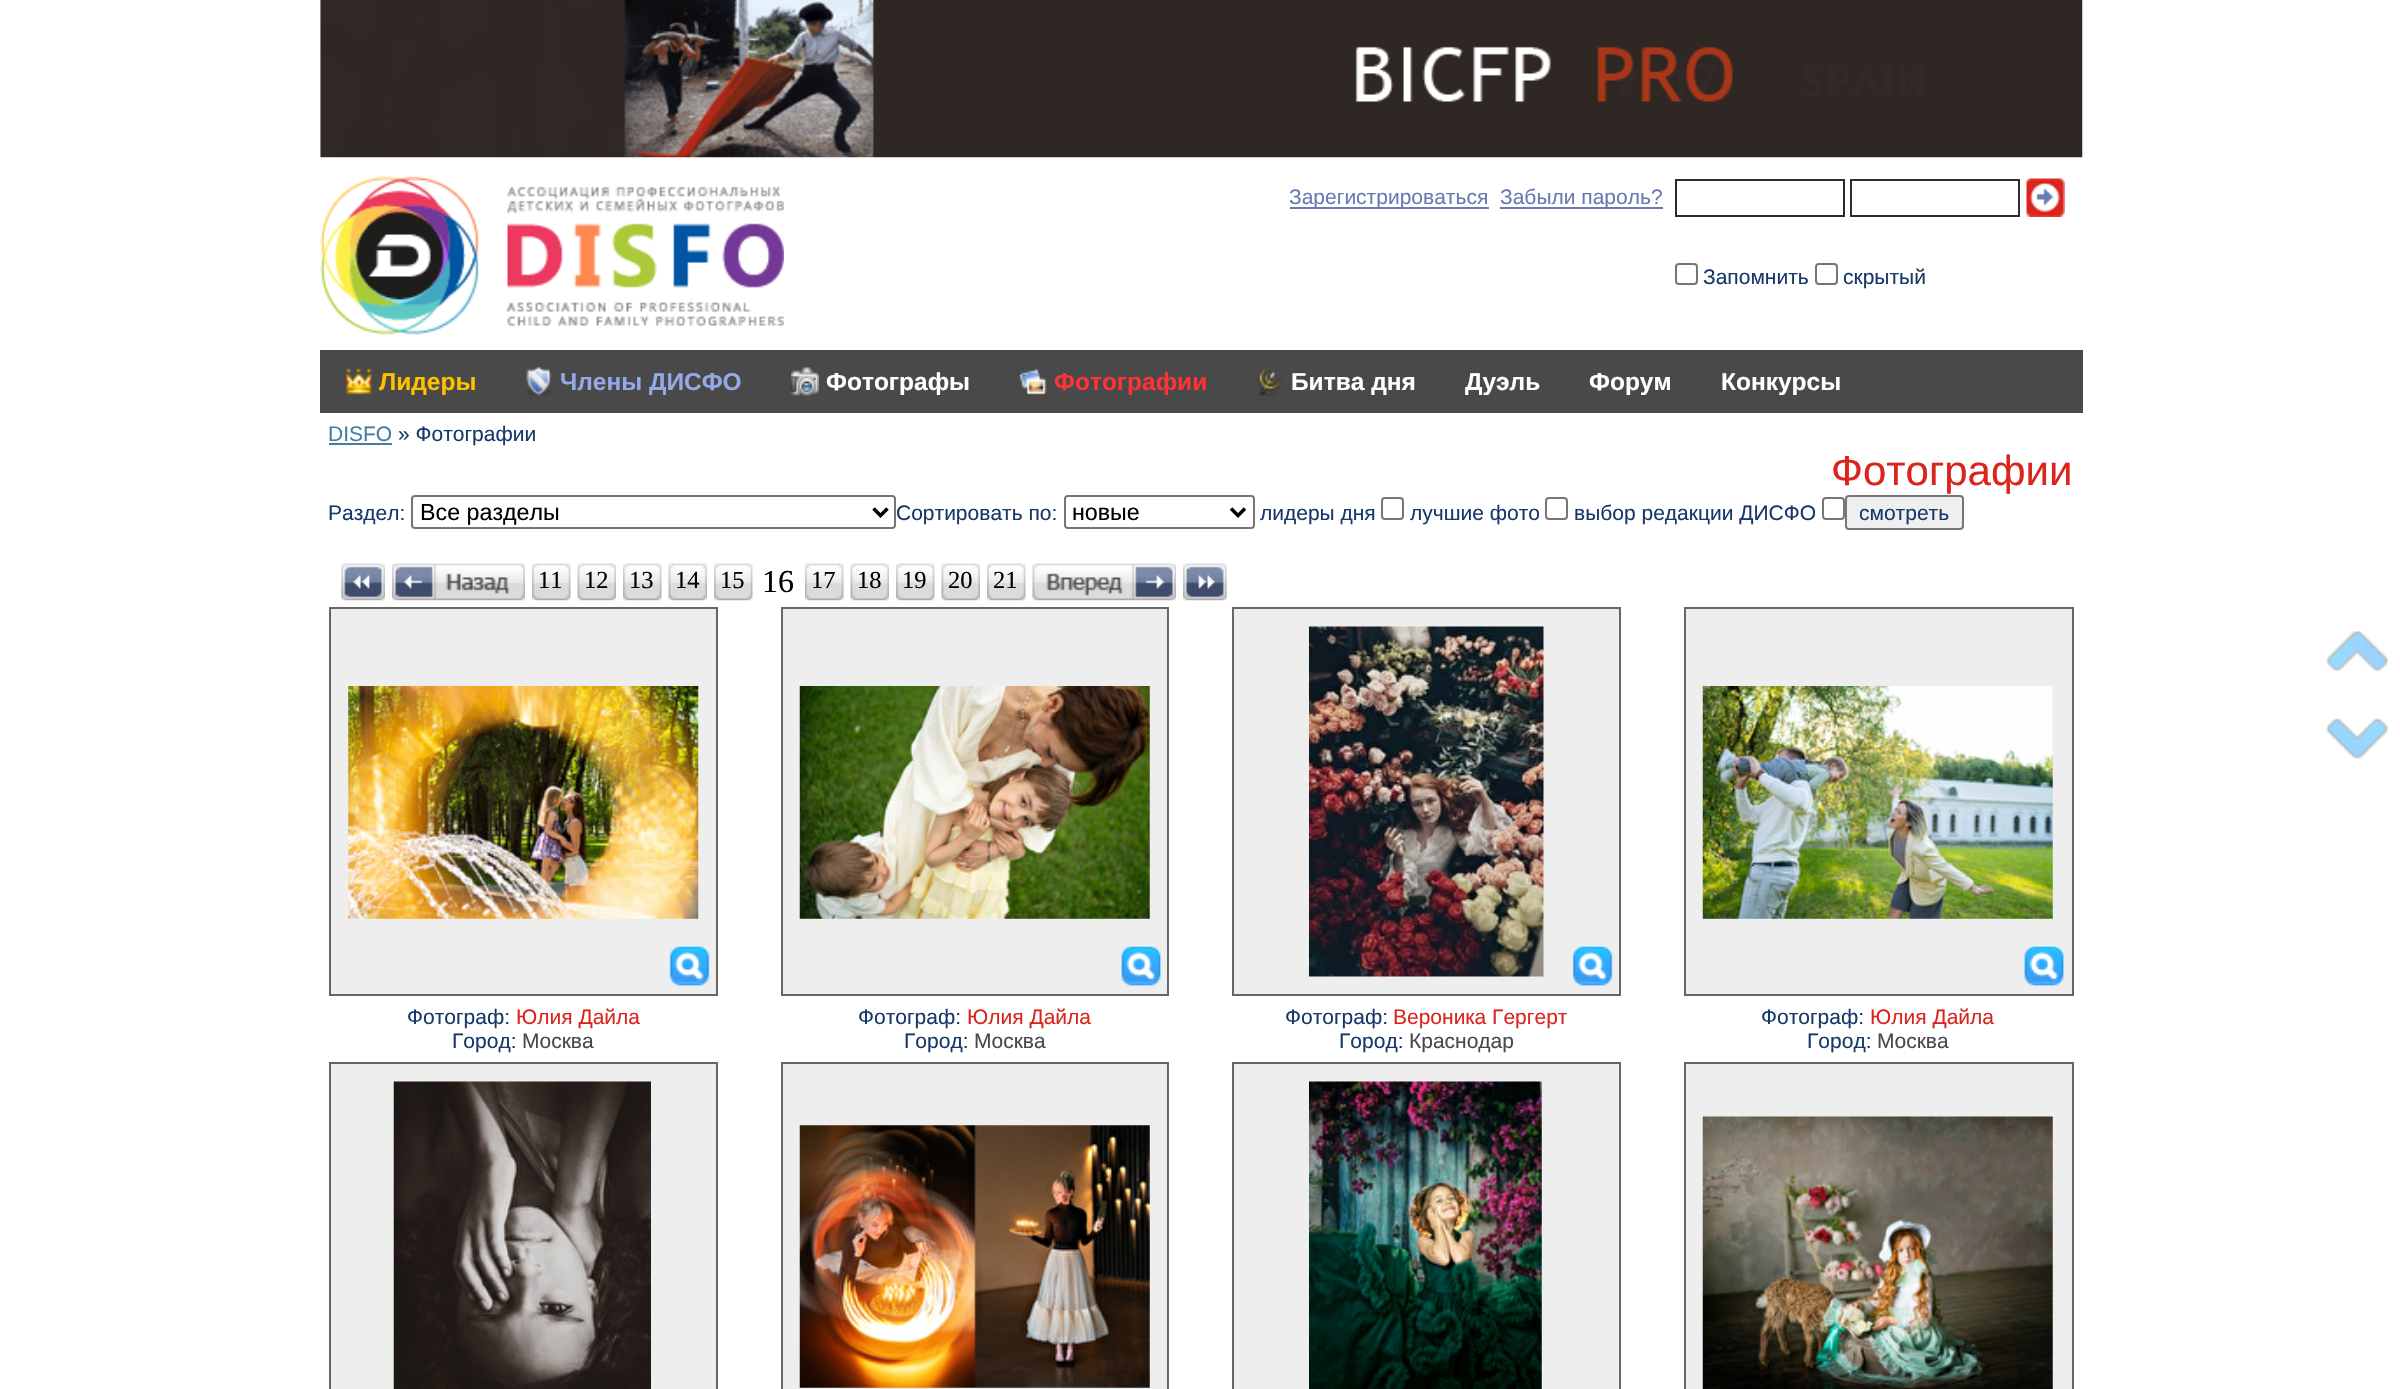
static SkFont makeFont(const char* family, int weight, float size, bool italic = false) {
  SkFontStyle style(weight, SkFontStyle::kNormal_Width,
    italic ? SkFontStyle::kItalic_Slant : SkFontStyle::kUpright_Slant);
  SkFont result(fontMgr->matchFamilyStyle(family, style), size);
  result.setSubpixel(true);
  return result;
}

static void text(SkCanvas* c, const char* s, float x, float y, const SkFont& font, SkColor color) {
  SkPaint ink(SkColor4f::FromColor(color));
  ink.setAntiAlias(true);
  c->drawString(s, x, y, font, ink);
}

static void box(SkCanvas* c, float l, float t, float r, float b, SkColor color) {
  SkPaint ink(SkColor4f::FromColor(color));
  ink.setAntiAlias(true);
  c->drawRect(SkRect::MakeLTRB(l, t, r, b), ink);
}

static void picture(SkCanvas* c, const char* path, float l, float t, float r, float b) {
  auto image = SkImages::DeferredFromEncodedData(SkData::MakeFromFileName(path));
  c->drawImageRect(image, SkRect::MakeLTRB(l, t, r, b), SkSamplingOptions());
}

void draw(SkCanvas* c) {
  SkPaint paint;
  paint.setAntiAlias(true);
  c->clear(0xffffffff);
  picture(c, "img_01.png", 320, 0, 2083, 158);
  picture(c, "img_02.png", 320, 176, 784, 335);
  box(c, 1290, 207, 1489, 209, 0xff667ab3);
  SkFont face1 = makeFont("Liberation Sans", 400, 21);
  text(c, "Зарегистрироваться", 1289, 204, face1, 0xff667ab3);
  box(c, 1500, 207, 1663, 209, 0xff667ab3);
  text(c, "Забыли пароль?", 1500, 204, face1, 0xff667ab3);
  paint.setStyle(SkPaint::kStroke_Style);
  paint.setStrokeWidth(2);
  paint.setColor(0xff292c30);
  c->drawRect(SkRect::MakeLTRB(1676, 180, 1844, 216), paint);
  c->drawRect(SkRect::MakeLTRB(1851, 180, 2019, 216), paint);
  picture(c, "img_03.png", 2026, 178, 2065, 217);
  paint.setColor(0xff767676);
  c->drawRoundRect(SkRect::MakeLTRB(1676, 264, 1697, 284), 3, 3, paint);
  text(c, "Запомнить", 1703, 284, face1, 0xff173869);
  c->drawRoundRect(SkRect::MakeLTRB(1816, 264, 1837, 284), 3, 3, paint);
  text(c, "скрытый", 1843, 284, face1, 0xff173869);
  box(c, 320, 350, 2083, 413, 0xff494949);
  picture(c, "img_04.png", 346, 368, 372, 395);
  SkFont face2 = makeFont("Liberation Sans", 700, 24.5f);
  text(c, "Лидеры", 379, 390, face2, 0xffffc000);
  picture(c, "img_05.png", 526, 367, 552, 396);
  text(c, "Члены ДИСФО", 560, 390, face2, 0xff95a8e8);
  picture(c, "img_06.png", 791, 367, 819, 396);
  text(c, "Фотографы", 826, 390, face2, 0xffffffff);
  picture(c, "img_07.png", 1018, 369, 1047, 396);
  text(c, "Фотографии", 1054, 390, face2, 0xffff3333);
  picture(c, "img_08.png", 1258, 367, 1282, 396);
  text(c, "Битва дня", 1291, 390, face2, 0xffffffff);
  text(c, "Дуэль", 1465, 390, face2, 0xffffffff);
  text(c, "Форум", 1589, 390, face2, 0xffffffff);
  text(c, "Конкурсы", 1721, 390, face2, 0xffffffff);
  text(c, "DISFO", 328, 441, face1, 0xff457da0);
  box(c, 329, 443, 392, 445, 0xff457da0);
  text(c, "» Фотографии", 398, 441, face1, 0xff173869);
  SkFont face3 = makeFont("Liberation Sans", 400, 42);
  text(c, "Фотографии", 1831, 485, face3, 0xffda251d);
  text(c, "Раздел:", 328, 520, face1, 0xff173869);
  c->drawRoundRect(SkRect::MakeLTRB(412, 496, 895, 528), 3, 3, paint);
  paint.setStrokeWidth(3.5f);
  paint.setColor(0xff000000);
  c->drawPath(SkPathBuilder().moveTo(873.5f, 508.5f).lineTo(880.5f, 515.5f).lineTo(887.5f, 508.5f).detach(), paint);
  SkFont face4 = makeFont("Liberation Sans", 400, 23.25f);
  text(c, "Все разделы", 420, 520, face4, 0xff000000);
  text(c, "Сортировать по:", 896, 520, face1, 0xff173869);
  paint.setStrokeWidth(2);
  paint.setColor(0xff767676);
  c->drawRoundRect(SkRect::MakeLTRB(1065, 496, 1254, 528), 3, 3, paint);
  paint.setStrokeWidth(3.5f);
  paint.setColor(0xff000000);
  c->drawPath(SkPathBuilder().moveTo(1231, 508.5f).lineTo(1238, 515.5f).lineTo(1245, 508.5f).detach(), paint);
  text(c, "новые", 1072, 520, face4, 0xff000000);
  text(c, "лидеры дня", 1260, 520, face1, 0xff173869);
  paint.setStrokeWidth(2);
  paint.setColor(0xff767676);
  c->drawRoundRect(SkRect::MakeLTRB(1382, 498, 1403, 519), 3, 3, paint);
  text(c, "лучшие фото", 1410, 520, face1, 0xff173869);
  c->drawRoundRect(SkRect::MakeLTRB(1546, 498, 1567, 519), 3, 3, paint);
  text(c, "выбор редакции ДИСФО", 1574, 520, face1, 0xff173869);
  c->drawRoundRect(SkRect::MakeLTRB(1823, 498, 1844, 519), 3, 3, paint);
  paint.setStyle(SkPaint::kFill_Style);
  paint.setColor(0xffefefef);
  c->drawRoundRect(SkRect::MakeLTRB(1846, 496, 1963, 529), 3, 3, paint);
  paint.setStyle(SkPaint::kStroke_Style);
  paint.setColor(0xff767676);
  c->drawRoundRect(SkRect::MakeLTRB(1846, 496, 1963, 529), 3, 3, paint);
  text(c, "смотреть", 1859, 520, face1, 0xff173869);
  picture(c, "img_09.png", 341, 563, 385, 601);
  picture(c, "img_10.png", 392, 563, 525, 601);
  picture(c, "img_11.png", 532, 563, 571, 601);
  SkFont face5 = makeFont("Liberation Serif", 400, 24.5f);
  text(c, "11", 538, 588, face5, 0xff000000);
  picture(c, "img_12.png", 577, 563, 616, 601);
  text(c, "12", 584, 588, face5, 0xff000000);
  picture(c, "img_11.png", 623, 563, 662, 601);
  text(c, "13", 629, 588, face5, 0xff000000);
  picture(c, "img_12.png", 668, 563, 707, 601);
  text(c, "14", 675, 588, face5, 0xff000000);
  picture(c, "img_11.png", 714, 563, 753, 601);
  text(c, "15", 720, 588, face5, 0xff000000);
  SkFont face6 = makeFont("Liberation Serif", 400, 32);
  text(c, "16", 762, 592, face6, 0xff000000);
  picture(c, "img_11.png", 805, 563, 844, 601);
  text(c, "17", 811, 588, face5, 0xff000000);
  picture(c, "img_12.png", 850, 563, 889, 601);
  text(c, "18", 857, 588, face5, 0xff000000);
  picture(c, "img_11.png", 896, 563, 935, 601);
  text(c, "19", 902, 588, face5, 0xff000000);
  picture(c, "img_13.png", 941, 563, 980, 601);
  text(c, "20", 948, 588, face5, 0xff000000);
  picture(c, "img_11.png", 987, 563, 1026, 601);
  text(c, "21", 993, 588, face5, 0xff000000);
  picture(c, "img_14.png", 1032, 563, 1176, 601);
  picture(c, "img_15.png", 1183, 563, 1227, 601);
  picture(c, "img_16.png", 2325, 631, 2389, 672);
  picture(c, "img_17.png", 2326, 718, 2389, 759);
  box(c, 331, 609, 716, 994, 0xffeeeeee);
  box(c, 329, 607, 718, 609, 0xff666666);
  box(c, 716, 607, 718, 996, 0xff666666);
  box(c, 329, 994, 718, 996, 0xff666666);
  box(c, 329, 607, 331, 996, 0xff666666);
  picture(c, "img_18.png", 348, 686, 699, 919);
  picture(c, "img_19.png", 669, 946, 710, 986);
  box(c, 783, 609, 1167, 994, 0xffeeeeee);
  box(c, 781, 607, 1169, 609, 0xff666666);
  box(c, 1167, 607, 1169, 996, 0xff666666);
  box(c, 781, 994, 1169, 996, 0xff666666);
  box(c, 781, 607, 783, 996, 0xff666666);
  picture(c, "img_20.png", 799, 686, 1150, 919);
  picture(c, "img_21.png", 1121, 946, 1161, 986);
  box(c, 1234, 609, 1619, 994, 0xffeeeeee);
  box(c, 1232, 607, 1621, 609, 0xff666666);
  box(c, 1619, 607, 1621, 996, 0xff666666);
  box(c, 1232, 994, 1621, 996, 0xff666666);
  box(c, 1232, 607, 1234, 996, 0xff666666);
  picture(c, "img_22.png", 1309, 626, 1544, 977);
  picture(c, "img_23.png", 1572, 946, 1613, 986);
  box(c, 1686, 609, 2072, 994, 0xffeeeeee);
  box(c, 1684, 607, 2074, 609, 0xff666666);
  box(c, 2072, 607, 2074, 996, 0xff666666);
  box(c, 1684, 994, 2074, 996, 0xff666666);
  box(c, 1684, 607, 1686, 996, 0xff666666);
  picture(c, "img_24.png", 1702, 686, 2053, 919);
  picture(c, "img_25.png", 2024, 946, 2064, 986);
  text(c, "Фотограф:", 407, 1024, face1, 0xff173869);
  text(c, "Юлия Дайла", 516, 1024, face1, 0xffda251d);
  text(c, "Город:", 452, 1048, face1, 0xff173869);
  text(c, "Москва", 522, 1048, face1, 0xff494949);
  text(c, "Фотограф:", 858, 1024, face1, 0xff173869);
  text(c, "Юлия Дайла", 967, 1024, face1, 0xffda251d);
  text(c, "Город:", 904, 1048, face1, 0xff173869);
  text(c, "Москва", 974, 1048, face1, 0xff494949);
  text(c, "Фотограф:", 1285, 1024, face1, 0xff173869);
  text(c, "Вероника Гергерт", 1393, 1024, face1, 0xffda251d);
  text(c, "Город:", 1339, 1048, face1, 0xff173869);
  text(c, "Краснодар", 1409, 1048, face1, 0xff494949);
  text(c, "Фотограф:", 1761, 1024, face1, 0xff173869);
  text(c, "Юлия Дайла", 1870, 1024, face1, 0xffda251d);
  text(c, "Город:", 1807, 1048, face1, 0xff173869);
  text(c, "Москва", 1877, 1048, face1, 0xff494949);
  box(c, 331, 1064, 716, 1389, 0xffeeeeee);
  box(c, 329, 1062, 718, 1064, 0xff666666);
  box(c, 716, 1062, 718, 1389, 0xff666666);
  box(c, 329, 1062, 331, 1389, 0xff666666);
  picture(c, "img_26.png", 393, 1081, 651, 1389);
  box(c, 783, 1064, 1167, 1389, 0xffeeeeee);
  box(c, 781, 1062, 1169, 1064, 0xff666666);
  box(c, 1167, 1062, 1169, 1389, 0xff666666);
  box(c, 781, 1062, 783, 1389, 0xff666666);
  picture(c, "img_27.png", 799, 1125, 1150, 1388);
  box(c, 1234, 1064, 1619, 1389, 0xffeeeeee);
  box(c, 1232, 1062, 1621, 1064, 0xff666666);
  box(c, 1619, 1062, 1621, 1389, 0xff666666);
  box(c, 1232, 1062, 1234, 1389, 0xff666666);
  picture(c, "img_28.png", 1309, 1081, 1542, 1389);
  box(c, 1686, 1064, 2072, 1389, 0xffeeeeee);
  box(c, 1684, 1062, 2074, 1064, 0xff666666);
  box(c, 2072, 1062, 2074, 1389, 0xff666666);
  box(c, 1684, 1062, 1686, 1389, 0xff666666);
  picture(c, "img_29.png", 1702, 1116, 2053, 1389);
}
